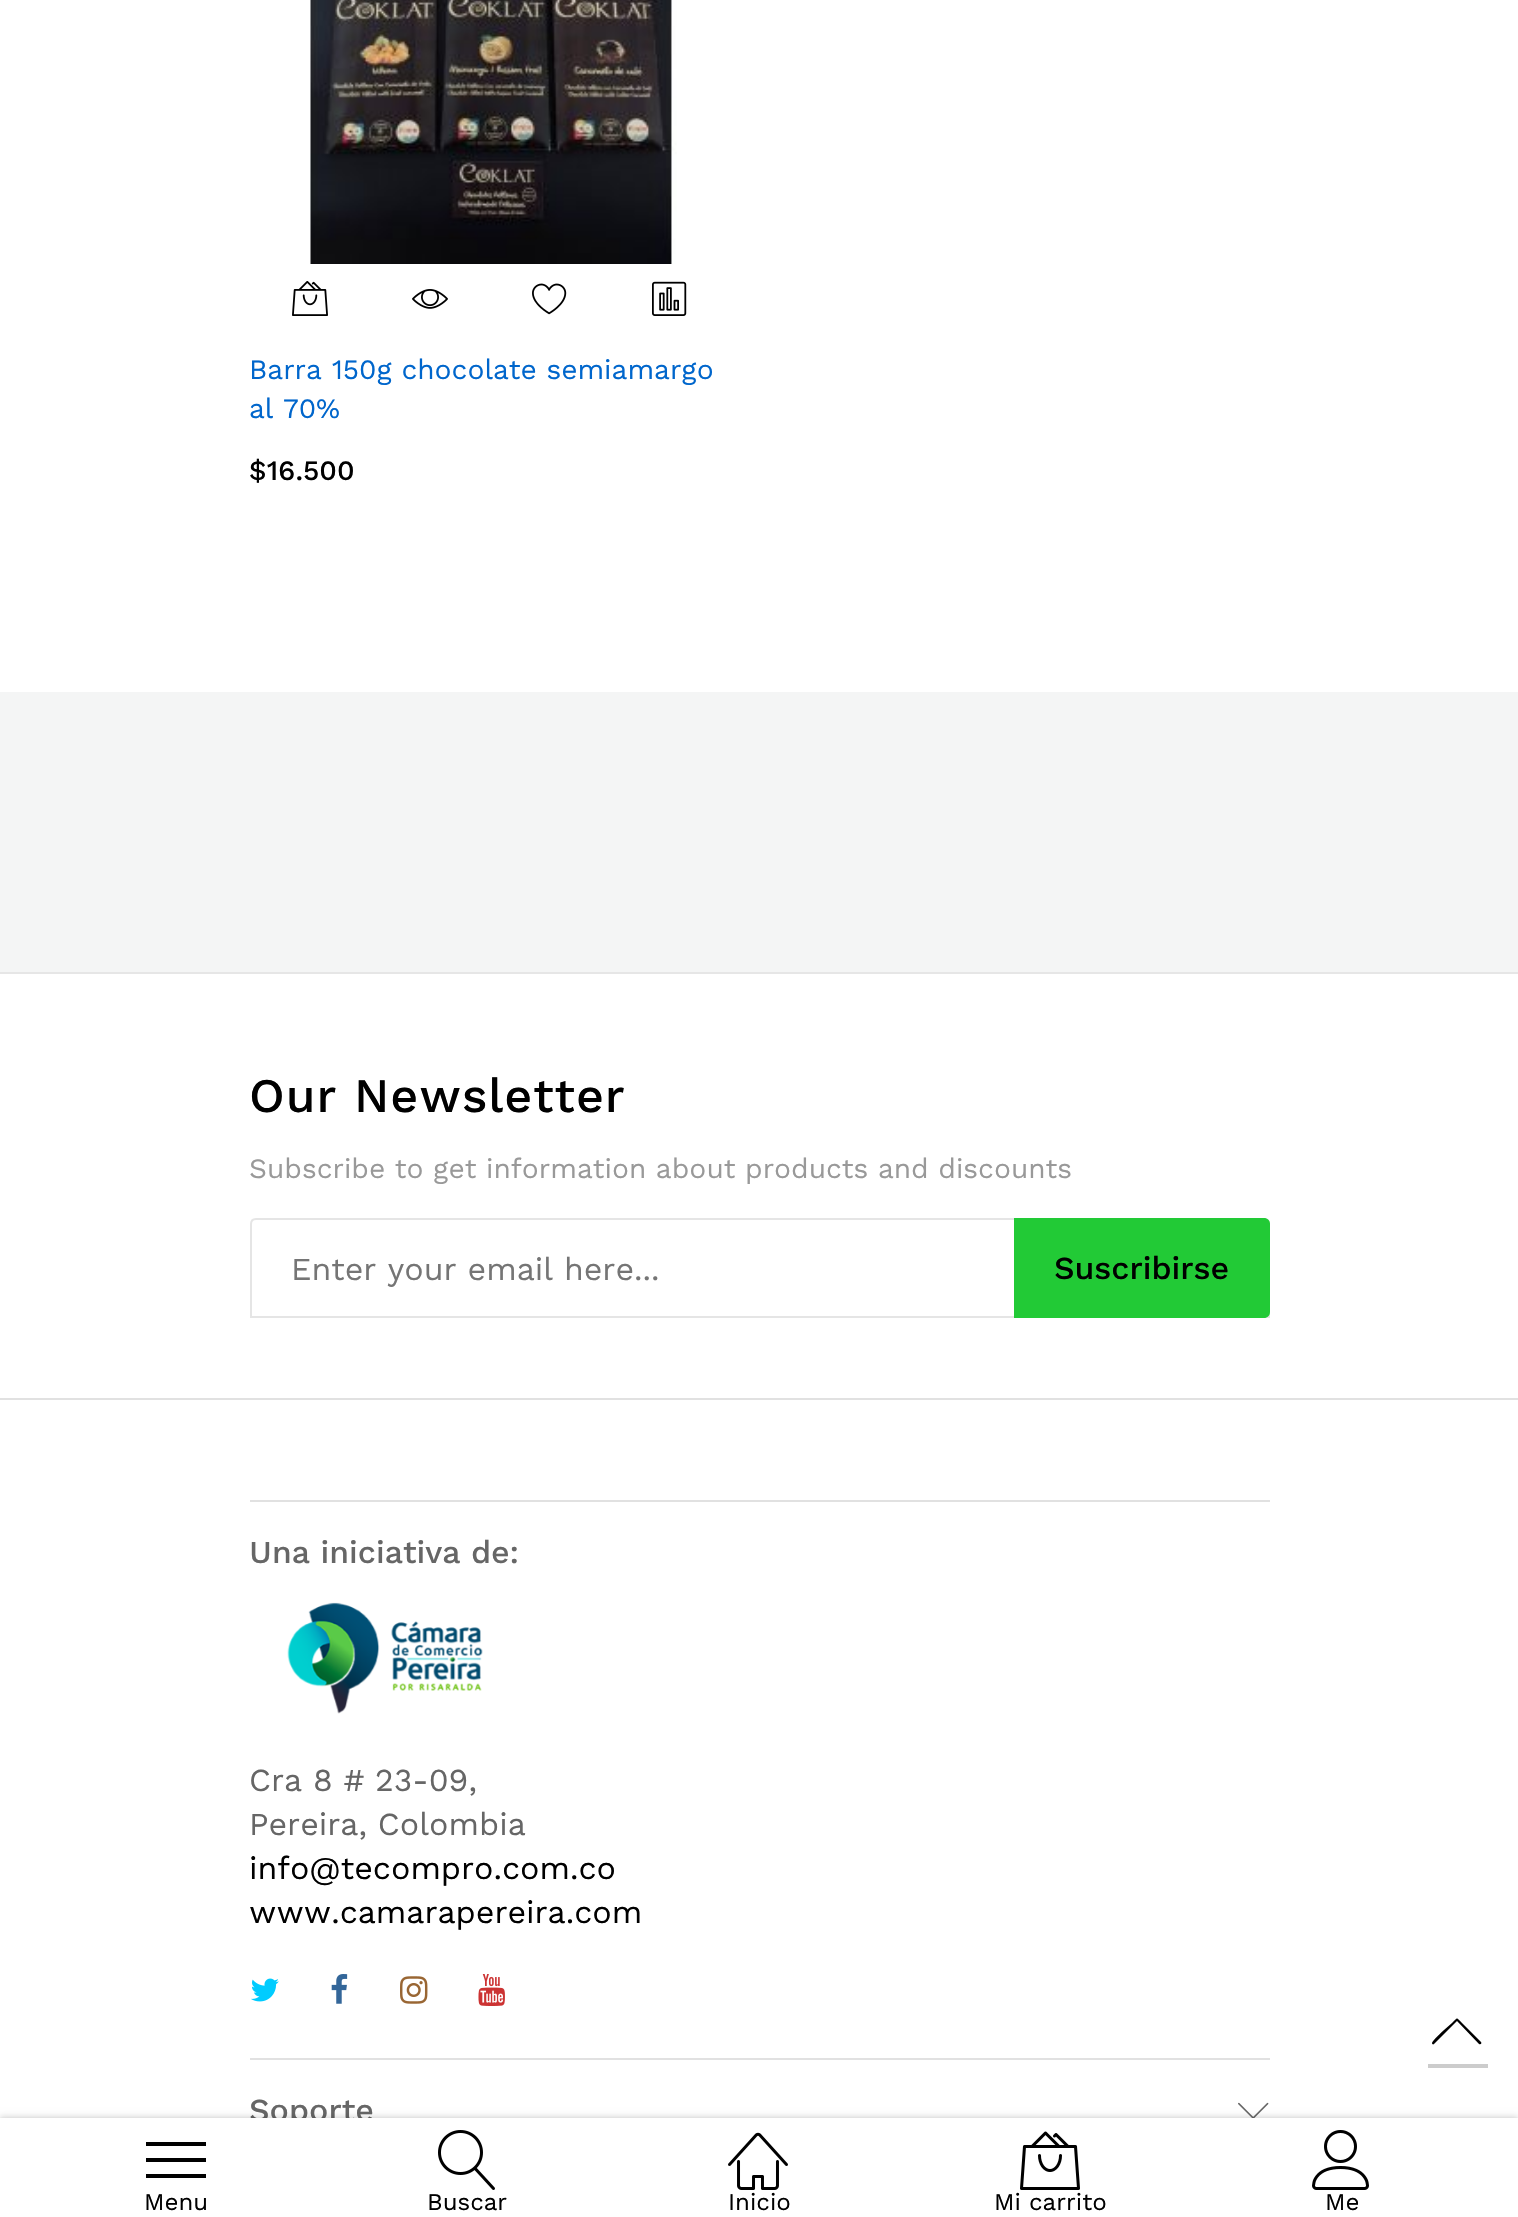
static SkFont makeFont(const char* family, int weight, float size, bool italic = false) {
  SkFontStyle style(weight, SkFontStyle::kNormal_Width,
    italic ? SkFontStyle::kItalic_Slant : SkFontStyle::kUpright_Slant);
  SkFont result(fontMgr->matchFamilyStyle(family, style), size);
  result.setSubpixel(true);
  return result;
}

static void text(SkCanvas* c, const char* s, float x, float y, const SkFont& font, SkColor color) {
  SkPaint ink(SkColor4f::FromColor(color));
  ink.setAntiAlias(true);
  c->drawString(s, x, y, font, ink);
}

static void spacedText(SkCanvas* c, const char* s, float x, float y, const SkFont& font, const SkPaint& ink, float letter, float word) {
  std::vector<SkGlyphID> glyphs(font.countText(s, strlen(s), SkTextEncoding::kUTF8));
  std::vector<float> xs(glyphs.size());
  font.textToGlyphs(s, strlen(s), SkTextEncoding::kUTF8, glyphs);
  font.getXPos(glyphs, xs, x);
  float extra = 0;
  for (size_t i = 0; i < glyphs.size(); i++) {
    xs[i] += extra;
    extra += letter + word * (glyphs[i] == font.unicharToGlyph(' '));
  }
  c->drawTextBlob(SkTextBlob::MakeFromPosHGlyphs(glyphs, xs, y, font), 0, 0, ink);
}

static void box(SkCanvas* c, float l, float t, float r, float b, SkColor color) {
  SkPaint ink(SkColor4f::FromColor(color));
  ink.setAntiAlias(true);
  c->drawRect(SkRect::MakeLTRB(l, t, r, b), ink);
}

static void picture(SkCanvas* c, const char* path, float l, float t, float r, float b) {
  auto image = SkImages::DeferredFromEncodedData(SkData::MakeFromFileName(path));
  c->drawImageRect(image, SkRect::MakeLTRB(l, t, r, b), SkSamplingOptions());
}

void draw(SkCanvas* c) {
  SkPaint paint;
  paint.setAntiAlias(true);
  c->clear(0xffffffff);
  picture(c, "img_01.png", 310, 0, 677, 264);
  picture(c, "img_02.png", 292, 281, 328, 316);
  picture(c, "img_03.png", 412, 289, 448, 309);
  picture(c, "img_04.png", 532, 283, 567, 315);
  picture(c, "img_05.png", 652, 281, 687, 316);
  SkFont face1 = makeFont("Work Sans", 400, 28);
  text(c, "Barra 150g chocolate semiamargo", 249, 379, face1, 0xff0066cc);
  text(c, "al 70%", 249, 418, face1, 0xff0066cc);
  SkFont face2 = makeFont("Work Sans", 500, 28);
  text(c, "$16.500", 249, 480, face2, 0xff000000);
  box(c, 0, 692, 1518, 972, 0xfff4f5f5);
  box(c, 0, 972, 1518, 974, 0xffe6e6e6);
  SkFont face3 = makeFont("Work Sans", 500, 48);
  paint.setColor(0xff000000);
  spacedText(c, "Our Newsletter", 249, 1112, face3, paint, 1, 0);
  text(c, "Subscribe to get information about products and discounts", 249, 1178, face1, 0xff999999);
  paint.setStyle(SkPaint::kStroke_Style);
  paint.setStrokeWidth(2);
  paint.setColor(0xffe5e5e5);
  c->drawPath(SkPathBuilder().moveTo(256, 1219).lineTo(1264, 1219).cubicTo(1267, 1219, 1269, 1221, 1269, 1224).lineTo(1269, 1317).lineTo(251, 1317).lineTo(251, 1224).cubicTo(251, 1221, 253, 1219, 256, 1219).close().detach(), paint);
  SkFont face4 = makeFont("Work Sans", 400, 32);
  text(c, "Enter your email here...", 291, 1280, face4, 0xff757575);
  paint.setStyle(SkPaint::kFill_Style);
  paint.setColor(0xff22ca36);
  c->drawPath(SkPathBuilder().moveTo(1014, 1218).lineTo(1264, 1218).cubicTo(1267.5f, 1218, 1270, 1220.5f, 1270, 1224).lineTo(1270, 1312).cubicTo(1270, 1315.5f, 1267.5f, 1318, 1264, 1318).lineTo(1014, 1318).close().detach(), paint);
  SkFont face5 = makeFont("Work Sans", 500, 32);
  text(c, "Suscribirse", 1054, 1279, face5, 0xff000000);
  box(c, 0, 1398, 1518, 1400, 0xffe1e1e1);
  box(c, 250, 1500, 1270, 1502, 0xffe1e1e1);
  text(c, "Una iniciativa de:", 249, 1563, face5, 0xff666666);
  picture(c, "img_06.png", 287, 1602, 483, 1714);
  text(c, "Cra 8 # 23-09,", 249, 1791, face4, 0xff666666);
  text(c, "Pereira, Colombia", 249, 1835, face4, 0xff666666);
  text(c, "info@tecompro.com.co", 249, 1879, face4, 0xff000000);
  text(c, "www.camarapereira.com", 249, 1923, face4, 0xff000000);
  picture(c, "img_07.png", 251, 1978, 279, 2002);
  picture(c, "img_08.png", 331, 1974, 348, 2004);
  picture(c, "img_09.png", 400, 1976, 428, 2004);
  picture(c, "img_10.png", 478, 1974, 505, 2006);
  box(c, 250, 2058, 1270, 2060, 0xffe1e1e1);
  text(c, "Soporte", 249, 2121, face5, 0xff666666);
  picture(c, "img_11.png", 1238, 2102, 1269, 2118);
  box(c, 1428, 2064, 1488, 2068, 0xffcccccc);
  paint.setColor(0xff000000);
  c->drawPath(SkPathBuilder().moveTo(1432, 2043).cubicTo(1432, 2044, 1433, 2045, 1434, 2044).lineTo(1457, 2021).lineTo(1479, 2044).cubicTo(1481, 2045, 1482, 2043, 1481, 2042).lineTo(1462, 2023).cubicTo(1456, 2017, 1458, 2017, 1452, 2023).lineTo(1444, 2030).cubicTo(1442, 2032, 1432, 2041, 1432, 2043).close().detach(), paint);
  paint.setColor(0x3d000000);
  paint.setMaskFilter(SkMaskFilter::MakeBlur(kNormal_SkBlurStyle, 2));
  c->drawRect(SkRect::MakeLTRB(0, 2120, 1518, 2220), paint);
  paint.setMaskFilter(nullptr);
  paint.setColor(0x1f000000);
  paint.setMaskFilter(SkMaskFilter::MakeBlur(kNormal_SkBlurStyle, 3));
  c->drawRect(SkRect::MakeLTRB(0, 2116, 1518, 2216), paint);
  paint.setMaskFilter(nullptr);
  box(c, 0, 2118, 1518, 2217, 0xffffffff);
  box(c, 146, 2158, 206, 2162, 0xff000000);
  box(c, 146, 2142, 206, 2146, 0xff000000);
  box(c, 146, 2174, 206, 2178, 0xff000000);
  SkFont face6 = makeFont("Work Sans", 400, 24);
  text(c, "Menu", 144, 2210, face6, 0xff000000);
  picture(c, "img_12.png", 438, 2130, 495, 2190);
  text(c, "Buscar", 427, 2210, face6, 0xff000000);
  picture(c, "img_13.png", 728, 2132, 788, 2190);
  text(c, "Inicio", 728, 2210, face6, 0xff000000);
  picture(c, "img_14.png", 1020, 2131, 1080, 2190);
  text(c, "Mi carrito", 994, 2210, face6, 0xff000000);
  picture(c, "img_15.png", 1312, 2130, 1369, 2190);
  text(c, "Me", 1325, 2210, face6, 0xff000000);
}
